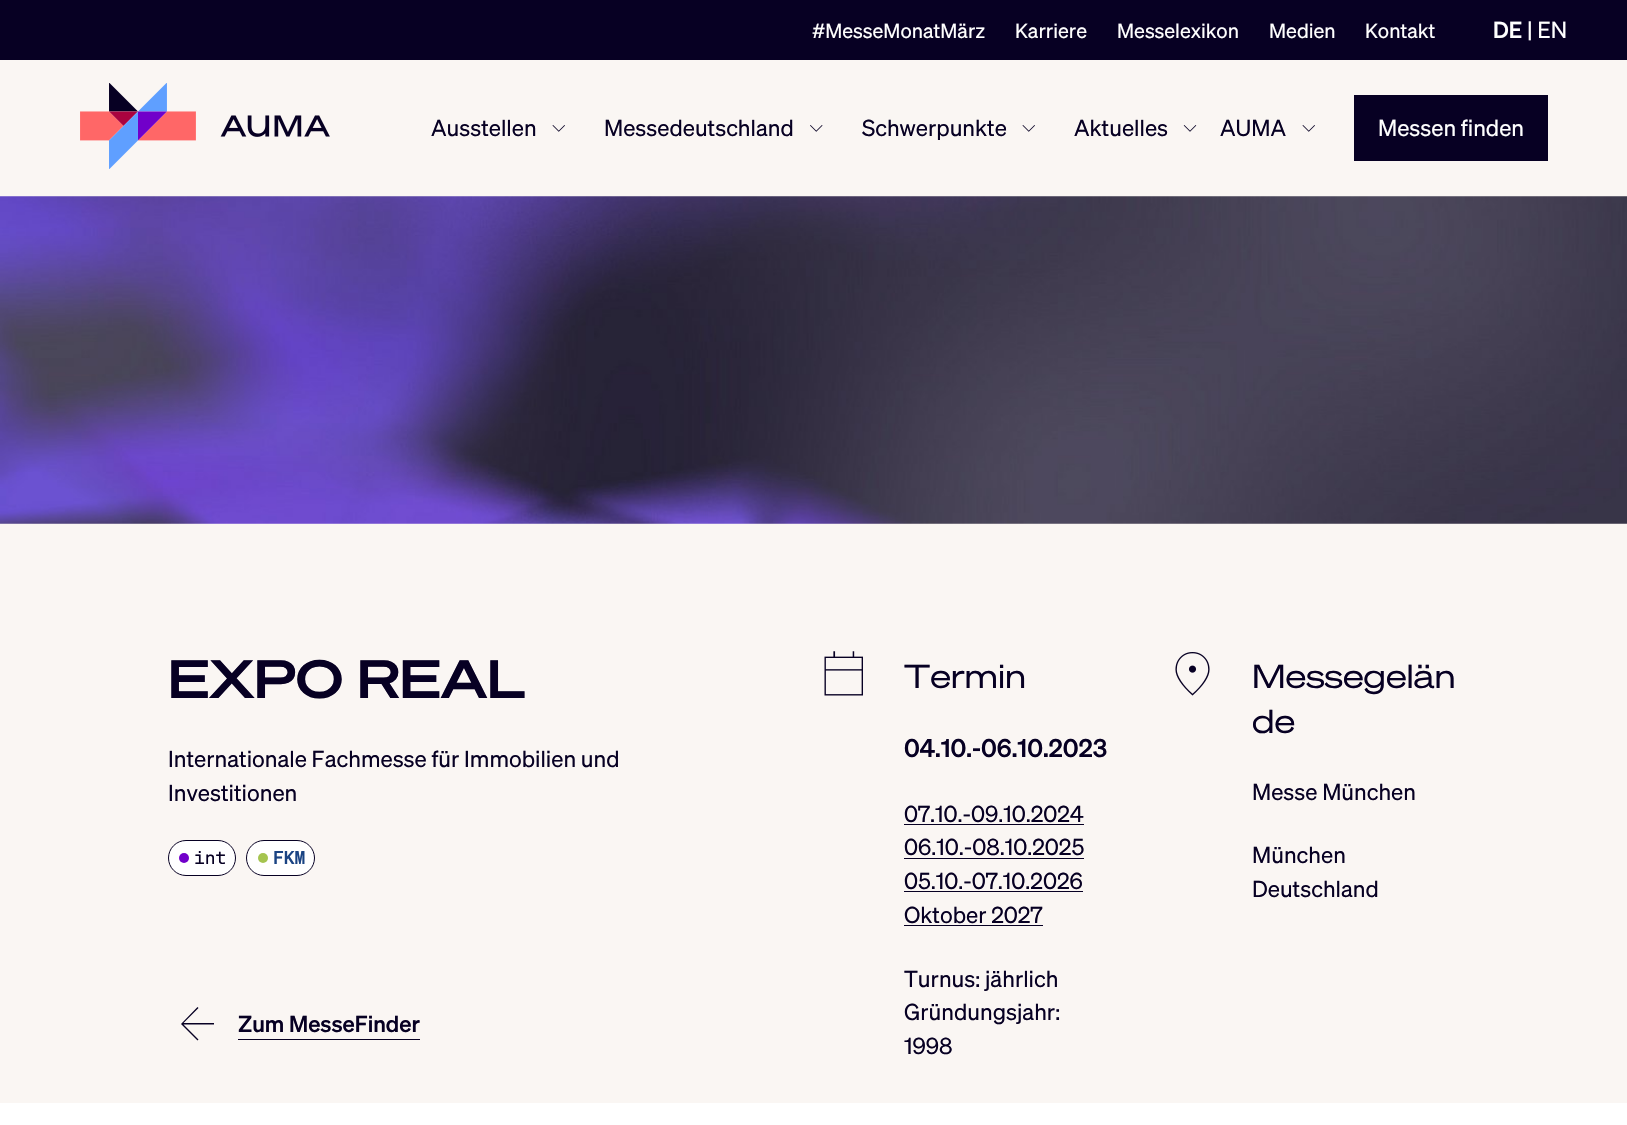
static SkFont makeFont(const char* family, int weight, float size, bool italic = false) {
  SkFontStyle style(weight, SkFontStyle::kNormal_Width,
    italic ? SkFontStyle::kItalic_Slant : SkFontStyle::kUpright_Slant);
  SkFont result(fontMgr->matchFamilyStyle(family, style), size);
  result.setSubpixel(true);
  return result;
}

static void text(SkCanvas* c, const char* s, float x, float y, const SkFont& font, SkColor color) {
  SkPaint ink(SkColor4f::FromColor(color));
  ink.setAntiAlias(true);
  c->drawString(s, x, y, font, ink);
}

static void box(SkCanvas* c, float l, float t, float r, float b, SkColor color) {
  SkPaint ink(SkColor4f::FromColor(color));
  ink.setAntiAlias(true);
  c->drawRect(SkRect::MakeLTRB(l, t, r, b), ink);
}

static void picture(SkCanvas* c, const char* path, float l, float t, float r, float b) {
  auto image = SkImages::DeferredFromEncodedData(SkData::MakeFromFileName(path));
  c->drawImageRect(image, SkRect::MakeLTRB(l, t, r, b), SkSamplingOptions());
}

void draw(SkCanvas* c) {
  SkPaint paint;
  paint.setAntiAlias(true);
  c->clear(0xffffffff);
  box(c, 0, 60, 1627, 1103, 0xfffaf6f3);
  box(c, 0, 0, 1627, 60, 0xff070023);
  SkFont face1 = makeFont("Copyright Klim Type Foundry", 400, 20);
  text(c, "#MesseMonatMärz", 812, 38, face1, 0xffffffff);
  text(c, "Karriere", 1015, 38, face1, 0xffffffff);
  text(c, "Messelexikon", 1117, 38, face1, 0xffffffff);
  text(c, "Medien", 1269, 38, face1, 0xffffffff);
  text(c, "Kontakt", 1365, 38, face1, 0xffffffff);
  SkFont face2 = makeFont("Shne", 500, 22.5f);
  text(c, "DE", 1493, 38, face2, 0xffffffff);
  SkFont face3 = makeFont("Copyright Klim Type Foundry", 400, 22.5f);
  text(c, "| EN", 1527, 38, face3, 0xffffffff);
  picture(c, "img_01.png", 80, 83, 330, 169);
  text(c, "Ausstellen", 431, 136, face3, 0xff070023);
  picture(c, "img_02.png", 552, 125, 565, 132);
  text(c, "Messedeutschland", 604, 136, face3, 0xff070023);
  picture(c, "img_03.png", 810, 125, 823, 132);
  text(c, "Schwerpunkte", 862, 136, face3, 0xff070023);
  picture(c, "img_02.png", 1022, 125, 1035, 132);
  text(c, "Aktuelles", 1074, 136, face3, 0xff070023);
  picture(c, "img_04.png", 1183, 125, 1197, 132);
  text(c, "AUMA", 1220, 136, face3, 0xff070023);
  picture(c, "img_02.png", 1302, 125, 1315, 132);
  box(c, 1354, 95, 1548, 161, 0xff070023);
  text(c, "Messen finden", 1378, 136, face3, 0xffffffff);
  picture(c, "img_05.png", 0, 196, 1627, 524);
  SkFont face4 = makeFont("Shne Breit", 600, 52.5f);
  text(c, "EXPO REAL", 168, 698, face4, 0xff070023);
  text(c, "Internationale Fachmesse für Immobilien und", 168, 767, face3, 0xff070023);
  text(c, "Investitionen", 168, 801, face3, 0xff070023);
  paint.setColor(0xffffffff);
  c->drawRoundRect(SkRect::MakeLTRB(168.5f, 840.5f, 235.5f, 875.5f), 17.5f, 17.5f, paint);
  paint.setStyle(SkPaint::kStroke_Style);
  paint.setStrokeWidth(1);
  paint.setColor(0xff070023);
  c->drawRoundRect(SkRect::MakeLTRB(168.5f, 840.5f, 235.5f, 875.5f), 17.5f, 17.5f, paint);
  paint.setStyle(SkPaint::kFill_Style);
  paint.setColor(0xff7100ca);
  c->drawCircle(184, 858, 5, paint);
  SkFont face5 = makeFont("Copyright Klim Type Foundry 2", 400, 18);
  text(c, "int", 194, 864, face5, 0xff070023);
  paint.setColor(0xffffffff);
  c->drawRoundRect(SkRect::MakeLTRB(246.5f, 840.5f, 314.5f, 875.5f), 17.5f, 17.5f, paint);
  paint.setStyle(SkPaint::kStroke_Style);
  paint.setColor(0xff070023);
  c->drawRoundRect(SkRect::MakeLTRB(246.5f, 840.5f, 314.5f, 875.5f), 17.5f, 17.5f, paint);
  paint.setStyle(SkPaint::kFill_Style);
  paint.setColor(0xffa5c44f);
  c->drawCircle(263, 858, 5, paint);
  SkFont face6 = makeFont("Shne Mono", 500, 18);
  text(c, "FKM", 273, 864, face6, 0xff1a4383);
  paint.setColor(0xff070023);
  c->drawPath(SkPathBuilder().moveTo(183.5f, 1024.5f).lineTo(198.5f, 1039.5f).lineTo(197.5f, 1040.5f).lineTo(181, 1024).lineTo(197.5f, 1007).lineTo(198.5f, 1008).lineTo(183.5f, 1023).lineTo(214, 1023).lineTo(214, 1024.5f).close().detach(), paint);
  text(c, "Zum MesseFinder", 238, 1032, face2, 0xff070023);
  box(c, 238, 1039, 420, 1040, 0xff070023);
  picture(c, "img_06.png", 824, 651, 863, 696);
  SkFont face7 = makeFont("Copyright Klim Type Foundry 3", 400, 32.5f);
  text(c, "Termin", 904, 688, face7, 0xff070023);
  SkFont face8 = makeFont("Shne", 500, 25);
  text(c, "04.10.-06.10.2023", 904, 757, face8, 0xff070023);
  text(c, "07.10.-09.10.2024", 904, 822, face3, 0xff070023);
  box(c, 904, 824, 1084, 825, 0xff070023);
  text(c, "06.10.-08.10.2025", 904, 855, face3, 0xff070023);
  box(c, 904, 858, 1084, 859, 0xff070023);
  text(c, "05.10.-07.10.2026", 904, 889, face3, 0xff070023);
  box(c, 904, 891, 1083, 892, 0xff070023);
  text(c, "Oktober 2027", 904, 923, face3, 0xff070023);
  box(c, 904, 925, 1043, 926, 0xff070023);
  text(c, "Turnus: jährlich", 904, 987, face3, 0xff070023);
  text(c, "Gründungsjahr:", 904, 1020, face3, 0xff070023);
  text(c, "1998", 904, 1054, face3, 0xff070023);
  picture(c, "img_07.png", 1175, 652, 1210, 696);
  text(c, "Messegelän", 1252, 688, face7, 0xff070023);
  text(c, "de", 1252, 733, face7, 0xff070023);
  text(c, "Messe München", 1252, 800, face3, 0xff070023);
  text(c, "München", 1252, 863, face3, 0xff070023);
  text(c, "Deutschland", 1252, 897, face3, 0xff070023);
}
